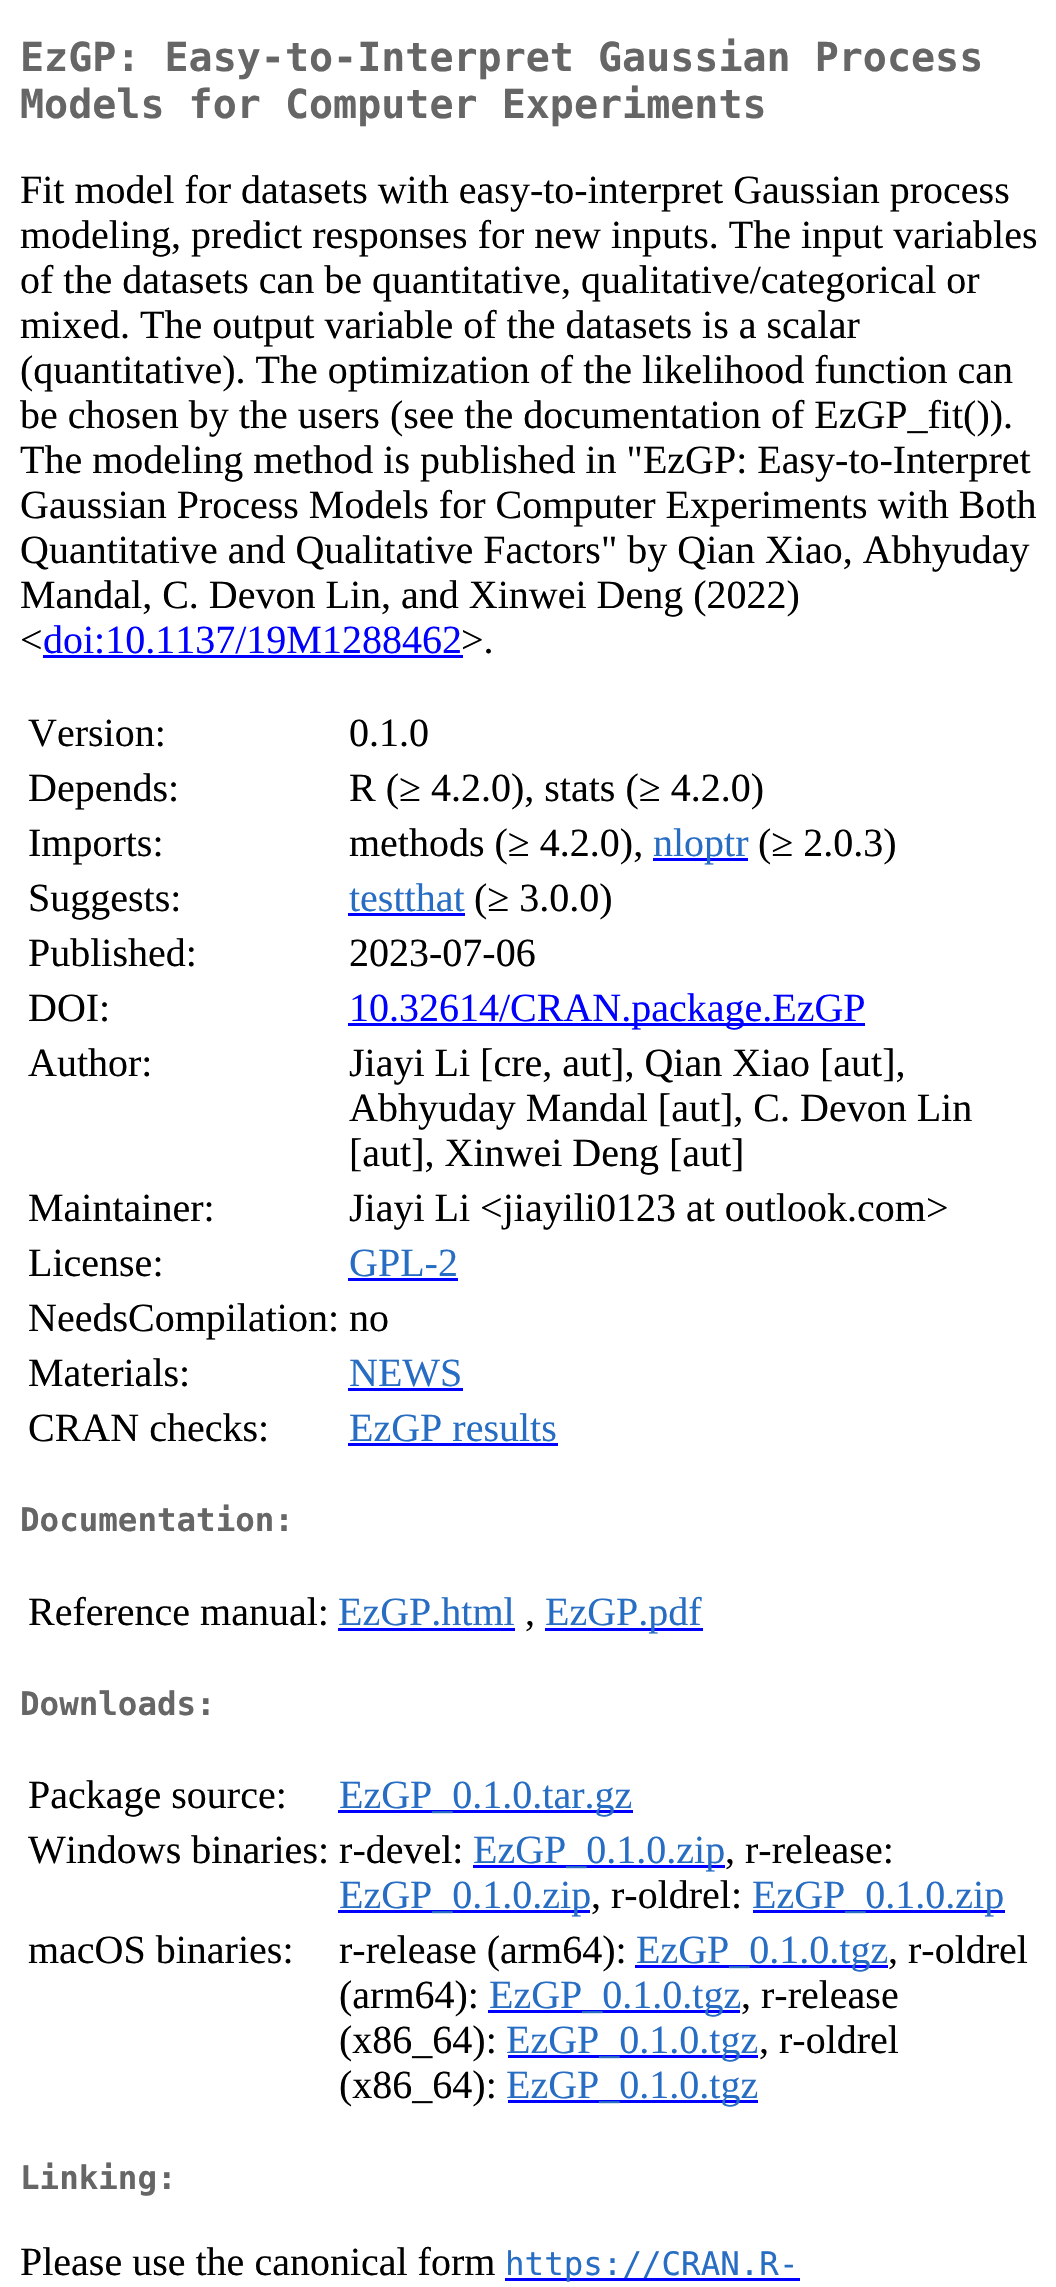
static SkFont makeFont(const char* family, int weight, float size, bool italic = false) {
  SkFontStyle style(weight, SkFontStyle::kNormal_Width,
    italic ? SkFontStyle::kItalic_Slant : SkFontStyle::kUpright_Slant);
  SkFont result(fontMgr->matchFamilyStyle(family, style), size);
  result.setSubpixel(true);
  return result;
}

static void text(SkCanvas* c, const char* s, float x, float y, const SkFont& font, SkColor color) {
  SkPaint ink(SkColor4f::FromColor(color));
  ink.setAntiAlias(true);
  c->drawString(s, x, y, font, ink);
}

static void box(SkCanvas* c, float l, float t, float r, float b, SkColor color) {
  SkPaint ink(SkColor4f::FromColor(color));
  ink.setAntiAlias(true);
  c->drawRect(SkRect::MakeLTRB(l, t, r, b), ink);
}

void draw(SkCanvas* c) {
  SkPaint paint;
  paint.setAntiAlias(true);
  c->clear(0xffffffff);
  SkFont face1 = makeFont("DejaVu Sans Mono", 700, 40);
  text(c, "EzGP: Easy-to-Interpret Gaussian Process", 20, 71, face1, 0xff666666);
  text(c, "Models for Computer Experiments", 20, 118, face1, 0xff666666);
  SkFont face2 = makeFont("Liberation Serif", 400, 40);
  text(c, "Fit model for datasets with easy-to-interpret Gaussian process", 20, 203, face2, 0xff000000);
  text(c, "modeling, predict responses for new inputs. The input variables", 20, 248, face2, 0xff000000);
  text(c, "of the datasets can be quantitative, qualitative/categorical or", 20, 293, face2, 0xff000000);
  text(c, "mixed. The output variable of the datasets is a scalar", 20, 338, face2, 0xff000000);
  text(c, "(quantitative). The optimization of the likelihood function can", 20, 383, face2, 0xff000000);
  text(c, "be chosen by the users (see the documentation of EzGP_fit()).", 20, 428, face2, 0xff000000);
  text(c, "The modeling method is published in \"EzGP: Easy-to-Interpret", 20, 473, face2, 0xff000000);
  text(c, "Gaussian Process Models for Computer Experiments with Both", 20, 518, face2, 0xff000000);
  text(c, "Quantitative and Qualitative Factors\" by Qian Xiao, Abhyuday", 20, 563, face2, 0xff000000);
  text(c, "Mandal, C. Devon Lin, and Xinwei Deng (2022)", 20, 608, face2, 0xff000000);
  text(c, "<", 20, 653, face2, 0xff000000);
  text(c, "doi:10.1137/19M1288462", 43, 653, face2, 0xff0000ff);
  box(c, 43, 655, 463, 658, 0xff0000ff);
  text(c, ">.", 461, 653, face2, 0xff000000);
  text(c, "Version:", 28, 746, face2, 0xff000000);
  text(c, "0.1.0", 349, 746, face2, 0xff000000);
  text(c, "Depends:", 28, 801, face2, 0xff000000);
  text(c, "R (≥ 4.2.0), stats (≥ 4.2.0)", 349, 801, face2, 0xff000000);
  text(c, "Imports:", 28, 856, face2, 0xff000000);
  text(c, "methods (≥ 4.2.0),", 349, 856, face2, 0xff000000);
  box(c, 653, 858, 748, 861, 0xff0000ff);
  text(c, "nloptr", 653, 856, face2, 0xff276dc3);
  text(c, "(≥ 2.0.3)", 758, 856, face2, 0xff000000);
  text(c, "Suggests:", 28, 911, face2, 0xff000000);
  text(c, "testthat", 349, 911, face2, 0xff276dc3);
  box(c, 348, 913, 465, 916, 0xff0000ff);
  text(c, "(≥ 3.0.0)", 474, 911, face2, 0xff000000);
  text(c, "Published:", 28, 966, face2, 0xff000000);
  text(c, "2023-07-06", 349, 966, face2, 0xff000000);
  text(c, "DOI:", 28, 1021, face2, 0xff000000);
  box(c, 348, 1023, 865, 1026, 0xff0000ff);
  text(c, "10.32614/CRAN.package.EzGP", 349, 1021, face2, 0xff0000ff);
  text(c, "Author:", 28, 1076, face2, 0xff000000);
  text(c, "Jiayi Li [cre, aut], Qian Xiao [aut],", 349, 1076, face2, 0xff000000);
  text(c, "Abhyuday Mandal [aut], C. Devon Lin", 349, 1121, face2, 0xff000000);
  text(c, "[aut], Xinwei Deng [aut]", 349, 1166, face2, 0xff000000);
  text(c, "Maintainer:", 28, 1221, face2, 0xff000000);
  text(c, "Jiayi Li <jiayili0123 at outlook.com>", 349, 1221, face2, 0xff000000);
  text(c, "License:", 28, 1276, face2, 0xff000000);
  text(c, "GPL-2", 349, 1276, face2, 0xff276dc3);
  box(c, 348, 1278, 458, 1281, 0xff0000ff);
  text(c, "NeedsCompilation: no", 28, 1331, face2, 0xff000000);
  text(c, "Materials:", 28, 1386, face2, 0xff000000);
  text(c, "NEWS", 349, 1386, face2, 0xff276dc3);
  box(c, 348, 1388, 463, 1391, 0xff0000ff);
  text(c, "CRAN checks:", 28, 1441, face2, 0xff000000);
  text(c, "EzGP results", 349, 1441, face2, 0xff276dc3);
  box(c, 348, 1443, 558, 1446, 0xff0000ff);
  SkFont face3 = makeFont("DejaVu Sans Mono", 700, 32.5f);
  text(c, "Documentation:", 20, 1531, face3, 0xff666666);
  text(c, "Reference manual:", 28, 1625, face2, 0xff000000);
  text(c, "EzGP.html", 338, 1625, face2, 0xff276dc3);
  box(c, 338, 1628, 515, 1631, 0xff0000ff);
  text(c, ",", 525, 1625, face2, 0xff000000);
  box(c, 545, 1628, 703, 1631, 0xff0000ff);
  text(c, "EzGP.pdf", 545, 1625, face2, 0xff276dc3);
  text(c, "Downloads:", 20, 1715, face3, 0xff666666);
  text(c, "Package source:", 28, 1808, face2, 0xff000000);
  box(c, 338, 1810, 633, 1813, 0xff0000ff);
  text(c, "EzGP_0.1.0.tar.gz", 339, 1808, face2, 0xff276dc3);
  text(c, "Windows binaries: r-devel:", 28, 1863, face2, 0xff000000);
  box(c, 473, 1865, 725, 1868, 0xff0000ff);
  text(c, "EzGP_0.1.0.zip", 473, 1863, face2, 0xff276dc3);
  text(c, ", r-release:", 725, 1863, face2, 0xff000000);
  box(c, 338, 1910, 590, 1913, 0xff0000ff);
  text(c, "EzGP_0.1.0.zip", 339, 1908, face2, 0xff276dc3);
  text(c, ", r-oldrel:", 591, 1908, face2, 0xff000000);
  box(c, 753, 1910, 1005, 1913, 0xff0000ff);
  text(c, "EzGP_0.1.0.zip", 752, 1908, face2, 0xff276dc3);
  text(c, "macOS binaries:", 28, 1963, face2, 0xff000000);
  text(c, "r-release (arm64):", 339, 1963, face2, 0xff000000);
  box(c, 635, 1965, 888, 1968, 0xff0000ff);
  text(c, "EzGP_0.1.0.tgz", 636, 1963, face2, 0xff276dc3);
  text(c, ", r-oldrel", 888, 1963, face2, 0xff000000);
  text(c, "(arm64):", 339, 2008, face2, 0xff000000);
  box(c, 488, 2010, 740, 2013, 0xff0000ff);
  text(c, "EzGP_0.1.0.tgz", 489, 2008, face2, 0xff276dc3);
  text(c, ", r-release", 741, 2008, face2, 0xff000000);
  text(c, "(x86_64):", 339, 2053, face2, 0xff000000);
  box(c, 508, 2055, 758, 2058, 0xff0000ff);
  text(c, "EzGP_0.1.0.tgz", 506, 2053, face2, 0xff276dc3);
  text(c, ", r-oldrel", 759, 2053, face2, 0xff000000);
  text(c, "(x86_64):", 339, 2098, face2, 0xff000000);
  box(c, 508, 2100, 758, 2103, 0xff0000ff);
  text(c, "EzGP_0.1.0.tgz", 506, 2098, face2, 0xff276dc3);
  text(c, "Linking:", 20, 2189, face3, 0xff666666);
  text(c, "Please use the canonical form", 20, 2275, face2, 0xff000000);
  box(c, 505, 2278, 800, 2281, 0xff0000ff);
  SkFont face4 = makeFont("DejaVu Sans Mono", 400, 32.5f);
  text(c, "https://CRAN.R-", 505, 2275, face4, 0xff276dc3);
}
